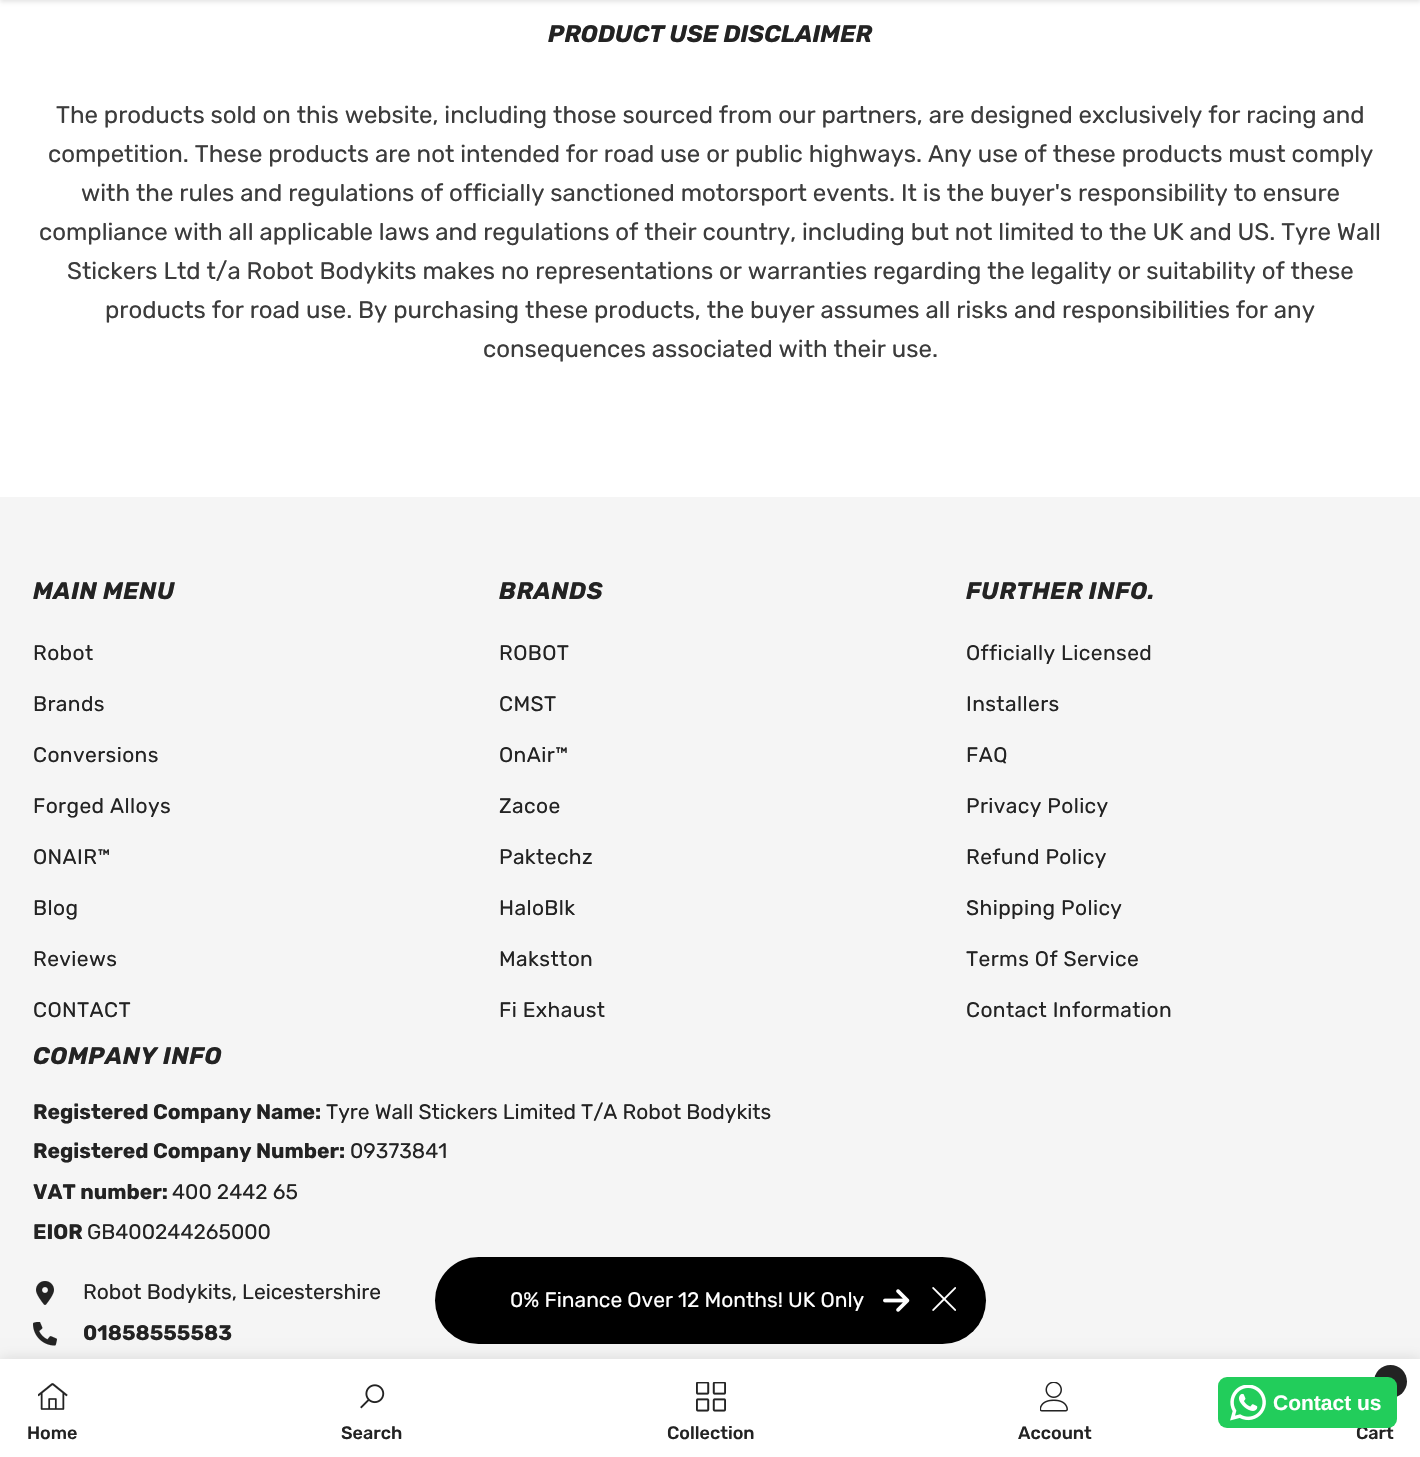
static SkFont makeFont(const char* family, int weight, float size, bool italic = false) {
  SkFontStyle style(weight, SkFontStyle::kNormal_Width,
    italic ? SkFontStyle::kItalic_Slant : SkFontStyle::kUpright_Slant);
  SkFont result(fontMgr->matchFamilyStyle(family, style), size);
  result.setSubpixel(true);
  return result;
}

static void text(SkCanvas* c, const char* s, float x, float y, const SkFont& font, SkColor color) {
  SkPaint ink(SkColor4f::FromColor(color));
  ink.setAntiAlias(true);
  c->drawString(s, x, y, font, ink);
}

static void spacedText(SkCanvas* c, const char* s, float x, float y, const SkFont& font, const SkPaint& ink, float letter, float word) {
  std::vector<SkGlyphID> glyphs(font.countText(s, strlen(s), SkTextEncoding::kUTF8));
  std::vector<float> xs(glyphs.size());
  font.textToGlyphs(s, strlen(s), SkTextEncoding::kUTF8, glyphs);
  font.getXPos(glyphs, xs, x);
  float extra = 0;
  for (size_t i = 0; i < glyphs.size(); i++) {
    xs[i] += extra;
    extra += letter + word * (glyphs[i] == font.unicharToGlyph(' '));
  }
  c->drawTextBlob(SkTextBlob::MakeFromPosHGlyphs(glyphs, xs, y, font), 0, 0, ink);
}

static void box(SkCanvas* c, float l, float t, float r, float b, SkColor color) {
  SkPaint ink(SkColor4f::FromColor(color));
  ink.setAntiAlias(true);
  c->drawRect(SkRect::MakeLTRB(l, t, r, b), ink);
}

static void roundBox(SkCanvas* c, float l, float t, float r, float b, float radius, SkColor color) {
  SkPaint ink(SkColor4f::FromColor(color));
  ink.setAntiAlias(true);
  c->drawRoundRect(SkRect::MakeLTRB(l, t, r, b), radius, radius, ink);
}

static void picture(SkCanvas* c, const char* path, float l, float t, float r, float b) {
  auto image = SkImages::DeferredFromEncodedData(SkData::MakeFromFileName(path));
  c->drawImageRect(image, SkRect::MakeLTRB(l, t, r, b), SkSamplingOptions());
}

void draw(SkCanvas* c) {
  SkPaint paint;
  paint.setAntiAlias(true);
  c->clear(0xffffffff);
  paint.setColor(0x1a000000);
  paint.setMaskFilter(SkMaskFilter::MakeBlur(kNormal_SkBlurStyle, 2));
  c->drawRect(SkRect::MakeLTRB(0, -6, 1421, 2), paint);
  paint.setMaskFilter(nullptr);
  SkFont face1 = makeFont("Rubik", 700, 24, true);
  text(c, "PRODUCT USE DISCLAIMER", 548, 42, face1, 0xff232323);
  SkFont face2 = makeFont("Rubik", 400, 24);
  text(c, "The products sold on this website, including those sourced from our partners, are designed exclusively for racing and", 56, 123, face2, 0xff3c3c3c);
  text(c, "competition. These products are not intended for road use or public highways. Any use of these products must comply", 48, 162, face2, 0xff3c3c3c);
  text(c, "with the rules and regulations of officially sanctioned motorsport events. It is the buyer's responsibility to ensure", 81, 201, face2, 0xff3c3c3c);
  text(c, "compliance with all applicable laws and regulations of their country, including but not limited to the UK and US. Tyre Wall", 39, 240, face2, 0xff3c3c3c);
  text(c, "Stickers Ltd t/a Robot Bodykits makes no representations or warranties regarding the legality or suitability of these", 67, 279, face2, 0xff3c3c3c);
  text(c, "products for road use. By purchasing these products, the buyer assumes all risks and responsibilities for any", 105, 318, face2, 0xff3c3c3c);
  text(c, "consequences associated with their use.", 483, 357, face2, 0xff3c3c3c);
  box(c, 0, 497, 1420, 1359, 0xfff5f5f5);
  paint.setColor(0xff232323);
  spacedText(c, "MAIN MENU", 33, 599, face1, paint, 0.5f, 0);
  SkFont face3 = makeFont("Rubik", 400, 21);
  spacedText(c, "Robot", 33, 660, face3, paint, 0.4f, 0);
  spacedText(c, "Brands", 33, 711, face3, paint, 0.4f, 0);
  spacedText(c, "Conversions", 33, 762, face3, paint, 0.4f, 0);
  spacedText(c, "Forged Alloys", 33, 813, face3, paint, 0.4f, 0);
  spacedText(c, "ONAIR™", 33, 864, face3, paint, 0.4f, 0);
  spacedText(c, "Blog", 33, 915, face3, paint, 0.4f, 0);
  spacedText(c, "Reviews", 33, 966, face3, paint, 0.4f, 0);
  spacedText(c, "CONTACT", 33, 1017, face3, paint, 0.4f, 0);
  spacedText(c, "BRANDS", 499, 599, face1, paint, 0.5f, 0);
  spacedText(c, "ROBOT", 499, 660, face3, paint, 0.4f, 0);
  spacedText(c, "CMST", 499, 711, face3, paint, 0.4f, 0);
  spacedText(c, "OnAir™", 499, 762, face3, paint, 0.4f, 0);
  spacedText(c, "Zacoe", 499, 813, face3, paint, 0.4f, 0);
  spacedText(c, "Paktechz", 499, 864, face3, paint, 0.4f, 0);
  spacedText(c, "HaloBlk", 499, 915, face3, paint, 0.4f, 0);
  spacedText(c, "Makstton", 499, 966, face3, paint, 0.4f, 0);
  spacedText(c, "Fi Exhaust", 499, 1017, face3, paint, 0.4f, 0);
  spacedText(c, "FURTHER INFO.", 966, 599, face1, paint, 0.5f, 0);
  spacedText(c, "Officially Licensed", 966, 660, face3, paint, 0.4f, 0);
  spacedText(c, "Installers", 966, 711, face3, paint, 0.4f, 0);
  spacedText(c, "FAQ", 966, 762, face3, paint, 0.4f, 0);
  spacedText(c, "Privacy Policy", 966, 813, face3, paint, 0.4f, 0);
  spacedText(c, "Refund Policy", 966, 864, face3, paint, 0.4f, 0);
  spacedText(c, "Shipping Policy", 966, 915, face3, paint, 0.4f, 0);
  spacedText(c, "Terms Of Service", 966, 966, face3, paint, 0.4f, 0);
  spacedText(c, "Contact Information", 966, 1017, face3, paint, 0.4f, 0);
  spacedText(c, "COMPANY INFO", 33, 1064, face1, paint, 0.5f, 0);
  SkFont face4 = makeFont("Rubik", 700, 21);
  text(c, "Registered Company Name:", 33, 1119, face4, 0xff232323);
  text(c, "Tyre Wall Stickers Limited T/A Robot Bodykits", 326, 1119, face3, 0xff232323);
  text(c, "Registered Company Number:", 33, 1158, face4, 0xff232323);
  text(c, "09373841", 350, 1158, face3, 0xff232323);
  text(c, "VAT number:", 33, 1199, face4, 0xff232323);
  text(c, "400 2442 65", 172, 1199, face3, 0xff232323);
  text(c, "EIOR", 33, 1239, face4, 0xff232323);
  text(c, "GB400244265000", 87, 1239, face3, 0xff232323);
  picture(c, "img_01.png", 36, 1281, 54, 1305);
  text(c, "Robot Bodykits, Leicestershire", 83, 1299, face3, 0xff232323);
  picture(c, "img_02.png", 33, 1322, 57, 1346);
  text(c, "01858555583", 83, 1340, face4, 0xff232323);
  roundBox(c, 435, 1257, 986, 1344, 43.5f, 0xff000000);
  paint.setColor(0x1f000000);
  paint.setMaskFilter(SkMaskFilter::MakeBlur(kNormal_SkBlurStyle, 7));
  c->drawRect(SkRect::MakeLTRB(0, 1359, 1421, 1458), paint);
  paint.setMaskFilter(nullptr);
  box(c, 0, 1359, 1420, 1457, 0xffffffff);
  picture(c, "img_03.png", 38, 1383, 68, 1410);
  SkFont face5 = makeFont("Rubik", 500, 18);
  text(c, "Home", 27, 1439, face5, 0xff232323);
  picture(c, "img_04.png", 360, 1384, 385, 1409);
  text(c, "Search", 341, 1439, face5, 0xff232323);
  picture(c, "img_05.png", 696, 1382, 726, 1412);
  text(c, "Collection", 667, 1439, face5, 0xff232323);
  picture(c, "img_06.png", 1040, 1382, 1068, 1412);
  text(c, "Account", 1018, 1439, face5, 0xff232323);
  paint.setColor(0xff232323);
  c->drawCircle(1390.5f, 1381.5f, 16.5f, paint);
  text(c, "Cart", 1356, 1439, face5, 0xff232323);
  text(c, "0% Finance Over 12 Months! UK Only", 510, 1307, face3, 0xffffffff);
  picture(c, "img_07.png", 883, 1289, 910, 1312);
  picture(c, "img_08.png", 932, 1287, 956, 1311);
  roundBox(c, 1218, 1377, 1397, 1428, 9, 0xff22cd5b);
  picture(c, "img_09.png", 1230, 1385, 1266, 1421);
  SkFont face6 = makeFont("Liberation Sans", 700, 21);
  text(c, "Contact us", 1273, 1410, face6, 0xffffffff);
}
